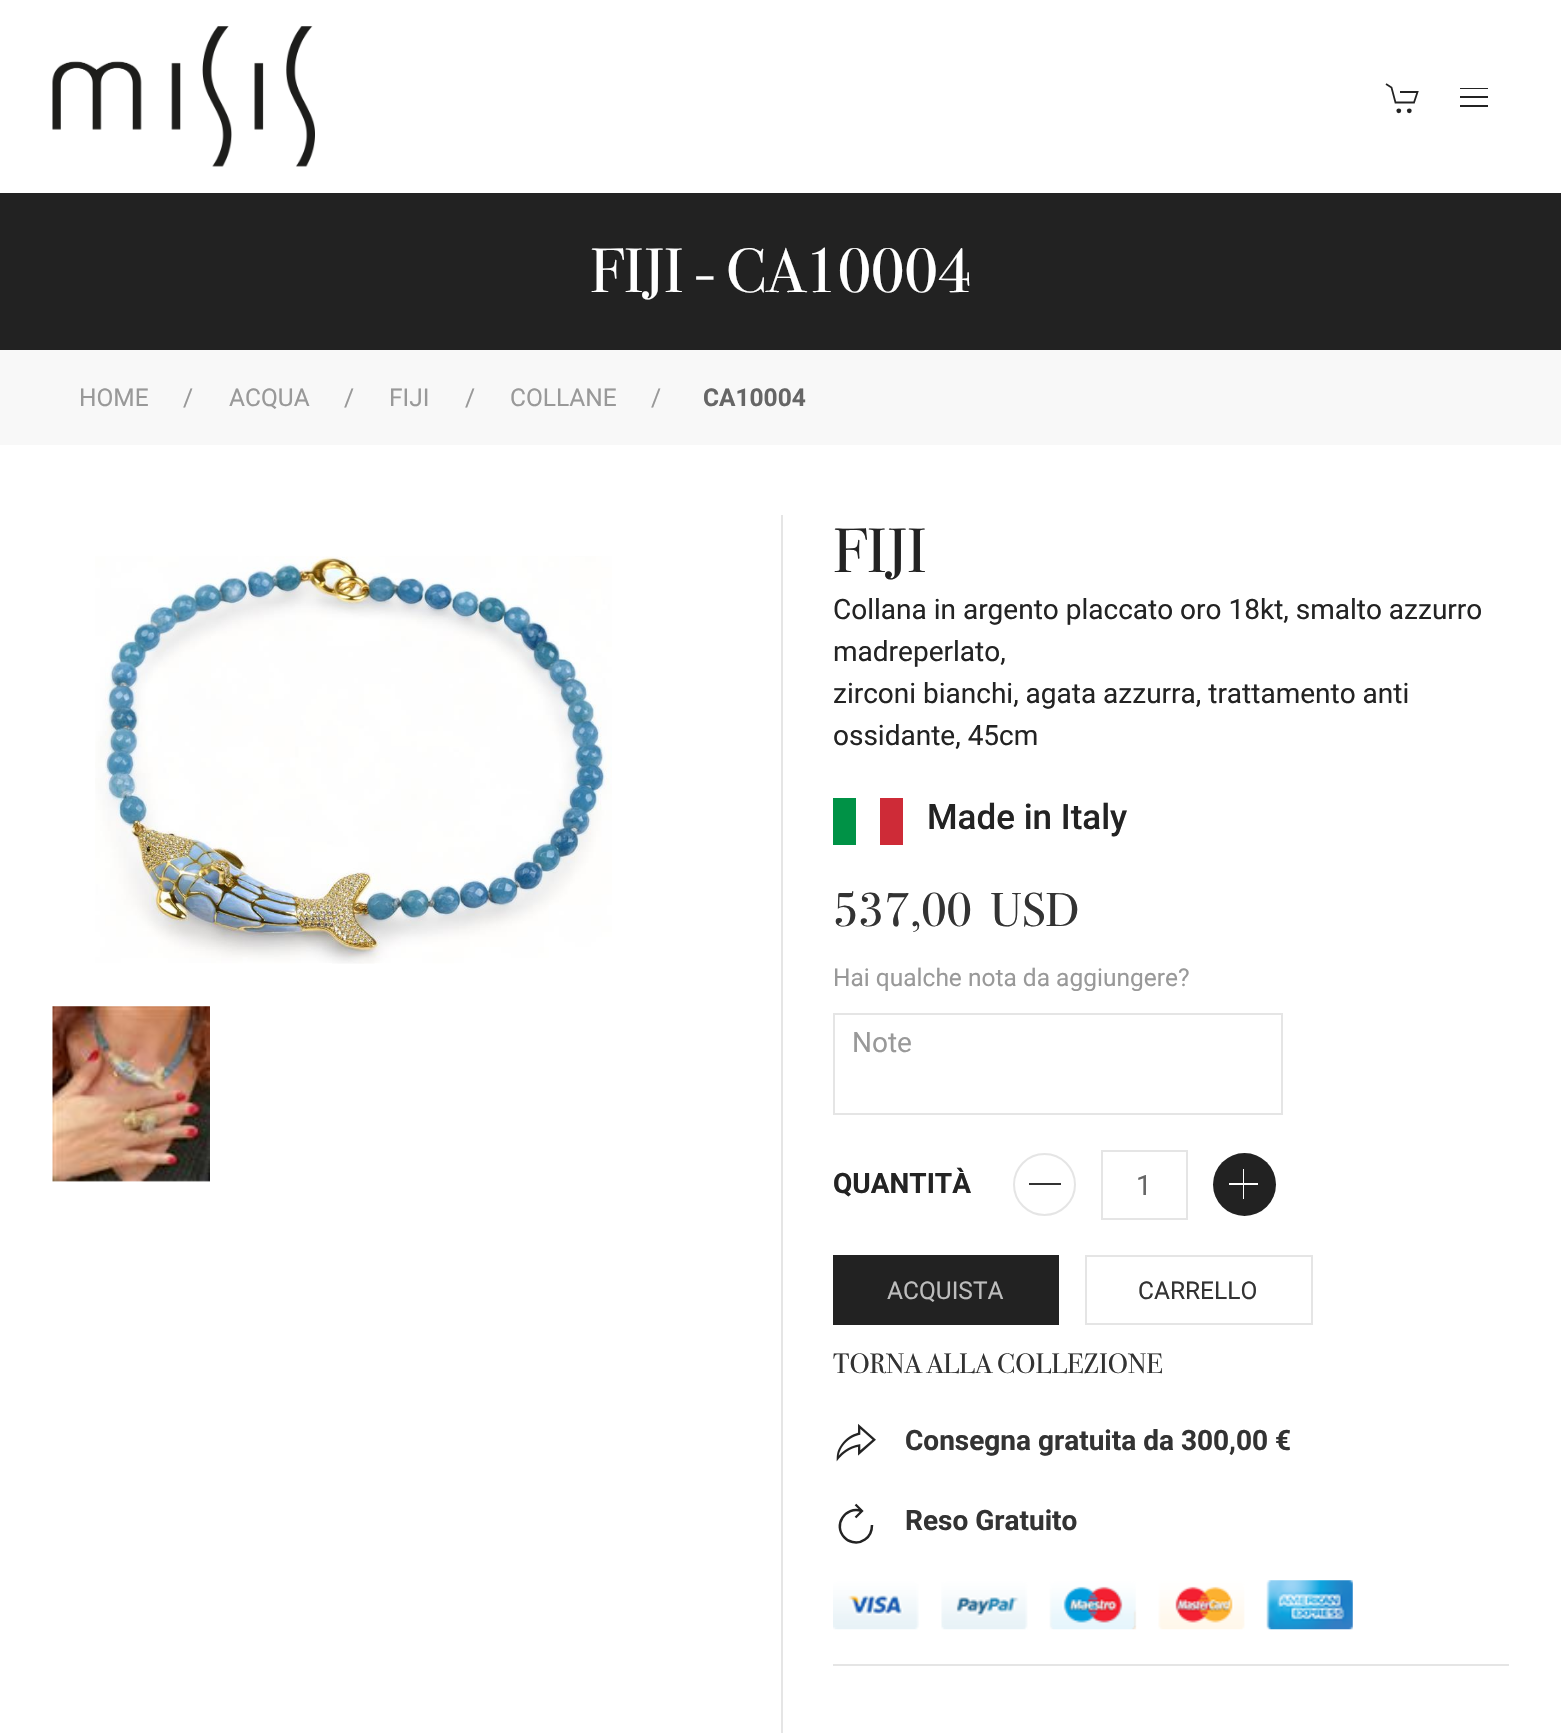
static SkFont makeFont(const char* family, int weight, float size, bool italic = false) {
  SkFontStyle style(weight, SkFontStyle::kNormal_Width,
    italic ? SkFontStyle::kItalic_Slant : SkFontStyle::kUpright_Slant);
  SkFont result(fontMgr->matchFamilyStyle(family, style), size);
  result.setSubpixel(true);
  return result;
}

static void text(SkCanvas* c, const char* s, float x, float y, const SkFont& font, SkColor color) {
  SkPaint ink(SkColor4f::FromColor(color));
  ink.setAntiAlias(true);
  c->drawString(s, x, y, font, ink);
}

static void box(SkCanvas* c, float l, float t, float r, float b, SkColor color) {
  SkPaint ink(SkColor4f::FromColor(color));
  ink.setAntiAlias(true);
  c->drawRect(SkRect::MakeLTRB(l, t, r, b), ink);
}

static void picture(SkCanvas* c, const char* path, float l, float t, float r, float b) {
  auto image = SkImages::DeferredFromEncodedData(SkData::MakeFromFileName(path));
  c->drawImageRect(image, SkRect::MakeLTRB(l, t, r, b), SkSamplingOptions());
}

void draw(SkCanvas* c) {
  SkPaint paint;
  paint.setAntiAlias(true);
  c->clear(0xffffffff);
  picture(c, "img_01.png", 52, 26, 315, 167);
  paint.setStyle(SkPaint::kStroke_Style);
  paint.setStrokeWidth(1.8f);
  paint.setColor(0xff232323);
  c->drawPath(SkPathBuilder().moveTo(1386, 84).lineTo(1391.5f, 87.5f).lineTo(1395.5f, 102.5f).lineTo(1414, 102.5f).lineTo(1417.5f, 92).lineTo(1400, 92).detach(), paint);
  paint.setStyle(SkPaint::kFill_Style);
  c->drawCircle(1398.8f, 110.8f, 2.4f, paint);
  c->drawCircle(1409.3f, 110.8f, 2.4f, paint);
  box(c, 1460, 88, 1488, 89, 0xff232323);
  box(c, 1460, 96, 1488, 98, 0xff232323);
  box(c, 1460, 105, 1488, 107, 0xff232323);
  box(c, 0, 193, 1561, 350, 0xff222222);
  SkFont face1 = makeFont("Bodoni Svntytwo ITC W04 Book", 400, 62.5f);
  text(c, "FIJI - CA10004", 590, 292, face1, 0xffffffff);
  box(c, 0, 350, 1561, 445, 0xfff8f8f8);
  SkFont face2 = makeFont("Roboto", 400, 24.5f);
  text(c, "HOME", 79, 406, face2, 0xff999999);
  text(c, "/", 183, 406, face2, 0xff999999);
  text(c, "ACQUA", 229, 406, face2, 0xff999999);
  text(c, "/", 344, 406, face2, 0xff999999);
  text(c, "FIJI", 389, 406, face2, 0xff999999);
  text(c, "/", 465, 406, face2, 0xff999999);
  text(c, "COLLANE", 510, 406, face2, 0xff999999);
  text(c, "/", 651, 406, face2, 0xff999999);
  SkFont face3 = makeFont("Roboto", 700, 24.5f);
  text(c, "CA10004", 703, 406, face3, 0xff666666);
  picture(c, "img_02.png", 95, 556, 612, 964);
  picture(c, "img_03.png", 52, 1006, 210, 1182);
  box(c, 781, 515, 783, 1733, 0xffe5e5e5);
  text(c, "FIJI", 833, 572, face1, 0xff232323);
  SkFont face4 = makeFont("Roboto", 400, 28);
  text(c, "Collana in argento placcato oro 18kt, smalto azzurro", 833, 619, face4, 0xff232323);
  text(c, "madreperlato,", 833, 661, face4, 0xff232323);
  text(c, "zirconi bianchi, agata azzurra, trattamento anti", 833, 703, face4, 0xff232323);
  text(c, "ossidante, 45cm", 833, 745, face4, 0xff232323);
  box(c, 833, 798, 856, 845, 0xff009246);
  box(c, 880, 798, 903, 845, 0xffce2b37);
  SkFont face5 = makeFont("Roboto", 500, 35);
  text(c, "Made in Italy", 927, 829, face5, 0xff232323);
  SkFont face6 = makeFont("Bodoni Svntytwo ITC W04 Book", 400, 47.5f);
  text(c, "537,00", 833, 926, face6, 0xff333333);
  text(c, "USD", 990, 926, face6, 0xff333333);
  text(c, "Hai qualche nota da aggiungere?", 833, 986, face2, 0xff999999);
  paint.setStyle(SkPaint::kStroke_Style);
  paint.setStrokeWidth(2);
  paint.setColor(0xffe5e5e5);
  c->drawRect(SkRect::MakeLTRB(834, 1014, 1282, 1114), paint);
  text(c, "Note", 852, 1052, face4, 0xff999999);
  SkFont face7 = makeFont("Roboto", 700, 28);
  text(c, "QUANTITÀ", 833, 1193, face7, 0xff232323);
  c->drawCircle(1044.5f, 1184.5f, 30.5f, paint);
  box(c, 1029, 1183, 1061, 1185, 0xff333333);
  c->drawRect(SkRect::MakeLTRB(1102, 1151, 1187, 1219), paint);
  text(c, "1", 1136, 1195, face4, 0xff666666);
  paint.setStyle(SkPaint::kFill_Style);
  paint.setColor(0xff222222);
  c->drawCircle(1244.5f, 1184.5f, 31.5f, paint);
  box(c, 1243, 1169, 1244, 1199, 0xffffffff);
  box(c, 1229, 1183, 1258, 1185, 0xffffffff);
  box(c, 833, 1255, 1059, 1325, 0xff222222);
  text(c, "ACQUISTA", 887, 1299, face2, 0xffbdbdbd);
  paint.setStyle(SkPaint::kStroke_Style);
  paint.setColor(0xffe5e5e5);
  c->drawRect(SkRect::MakeLTRB(1086, 1256, 1312, 1324), paint);
  text(c, "CARRELLO", 1138, 1299, face2, 0xff333333);
  SkFont face8 = makeFont("Bodoni Svntytwo ITC W04 Book", 400, 28);
  text(c, "TORNA ALLA COLLEZIONE", 833, 1373, face8, 0xff333333);
  picture(c, "img_04.png", 836, 1423, 876, 1462);
  text(c, "Consegna gratuita da 300,00 €", 905, 1450, face7, 0xff333333);
  paint.setStrokeWidth(2.5f);
  paint.setColor(0xff232323);
  c->drawPath(SkPathBuilder().moveTo(872, 1525).cubicTo(872, 1531, 869.5f, 1536.5f, 865, 1539.5f).cubicTo(861.5f, 1542, 857, 1543, 852.5f, 1542).cubicTo(849.5f, 1541.5f, 846.5f, 1540, 844.5f, 1537.5f).cubicTo(832.5f, 1525.5f, 845.5f, 1505.5f, 861.5f, 1511).detach(), paint);
  paint.setStrokeWidth(2.3f);
  c->drawPath(SkPathBuilder().moveTo(855.5f, 1504.5f).lineTo(862, 1511).lineTo(855.5f, 1517.5f).detach(), paint);
  text(c, "Reso Gratuito", 905, 1530, face7, 0xff333333);
  picture(c, "img_05.png", 833, 1580, 1353, 1630);
  box(c, 833, 1664, 1509, 1666, 0xffe5e5e5);
}
